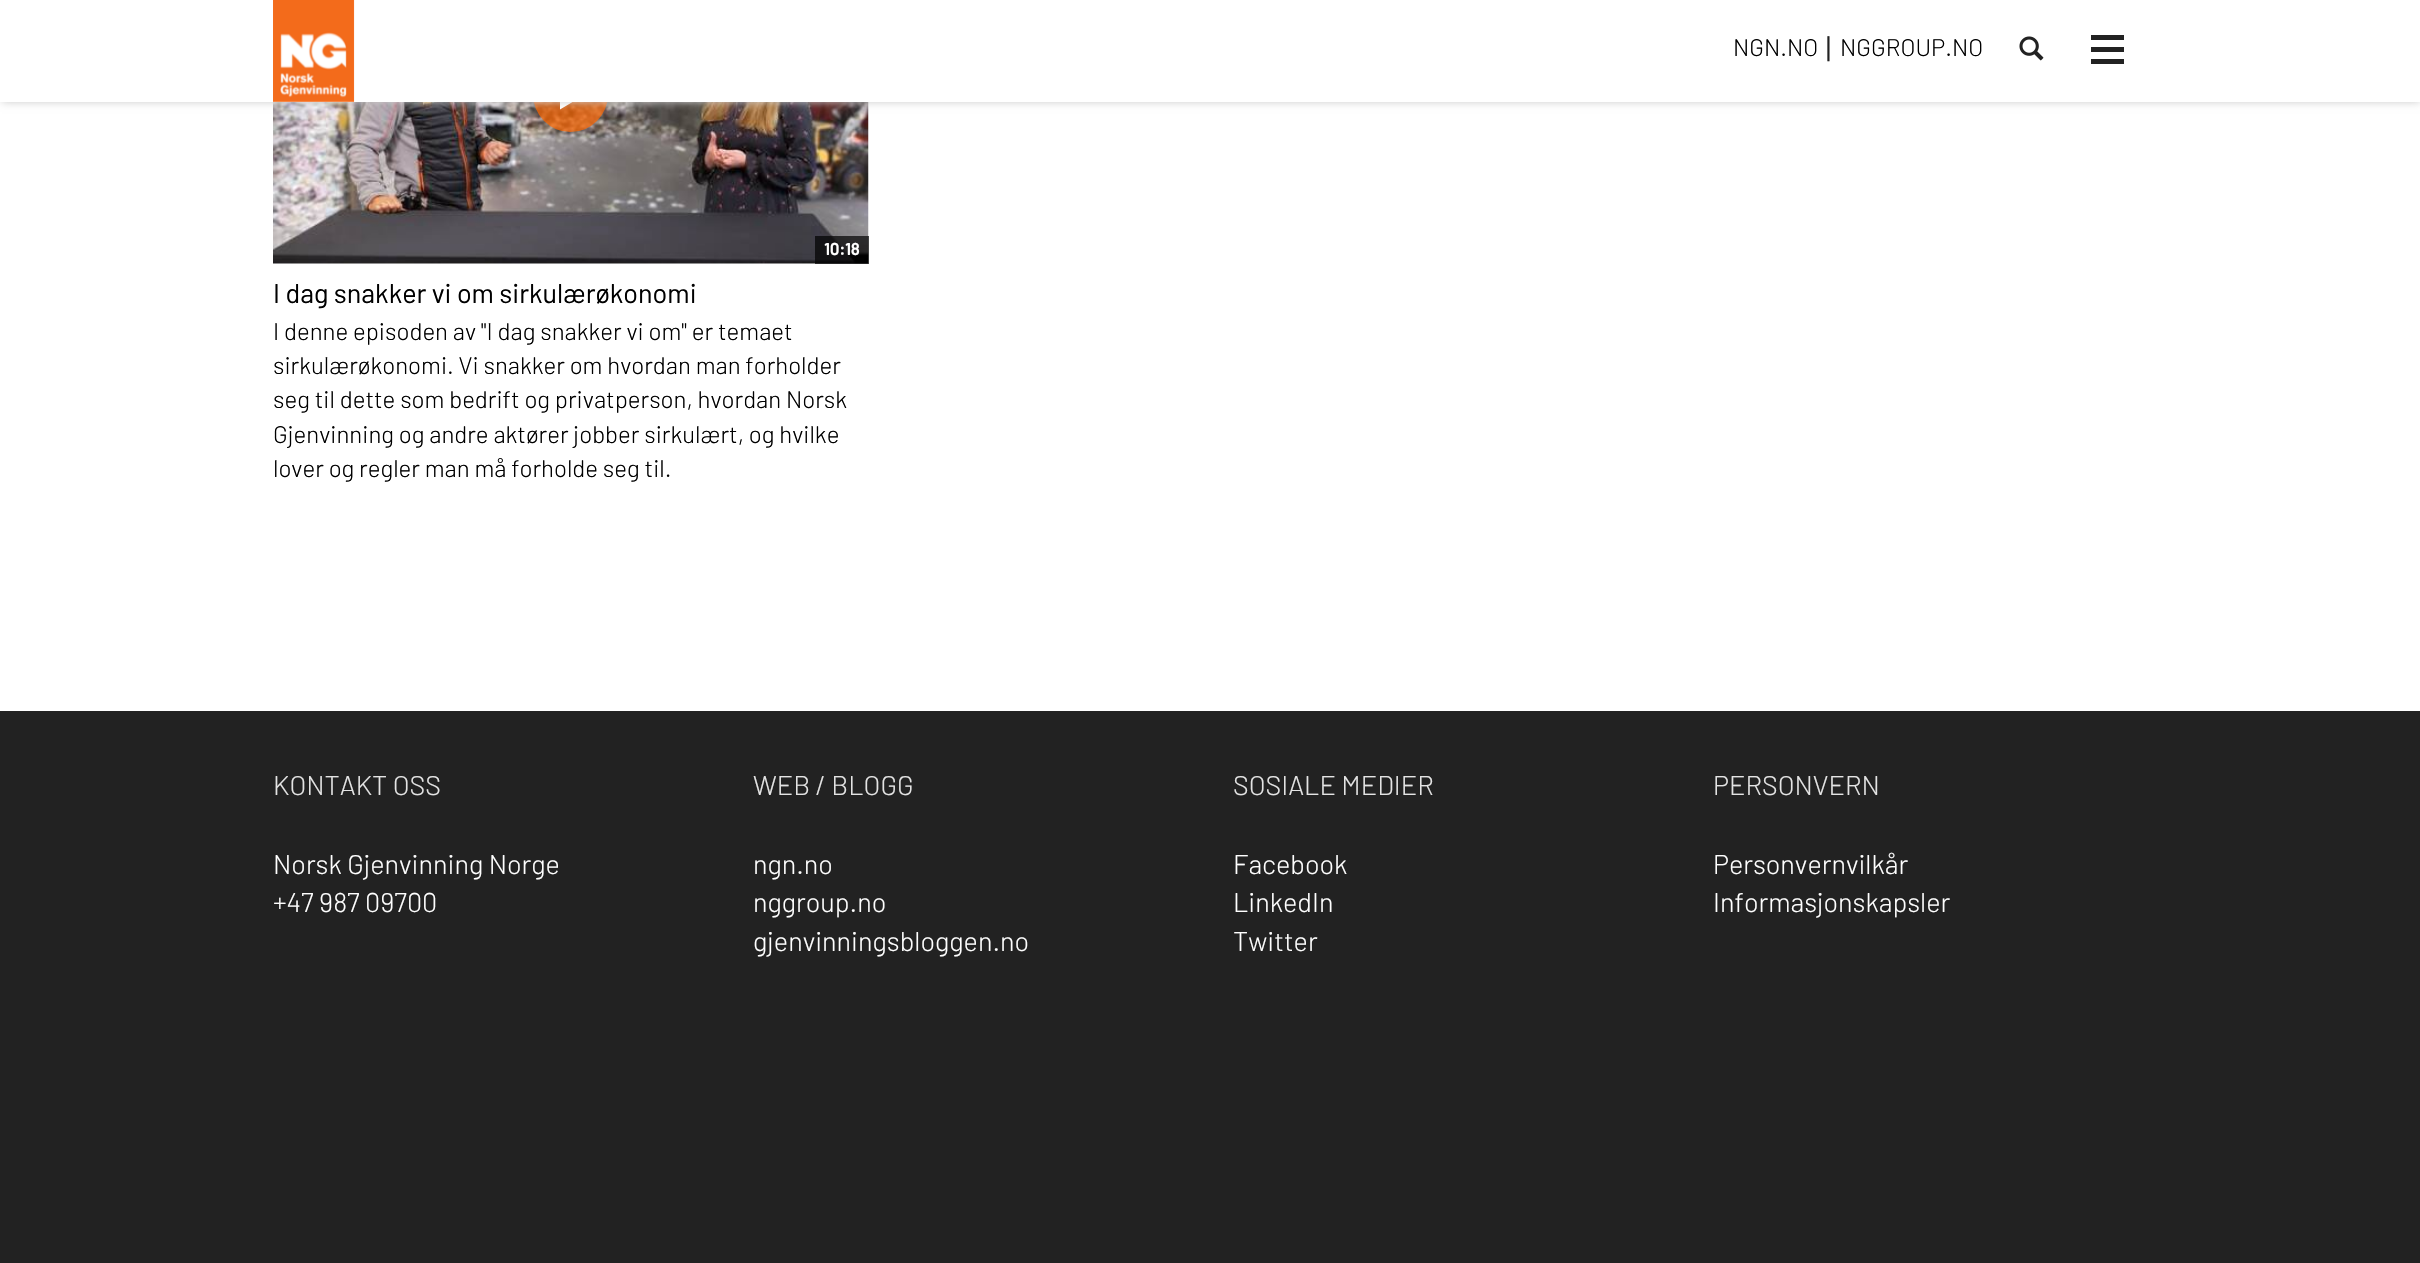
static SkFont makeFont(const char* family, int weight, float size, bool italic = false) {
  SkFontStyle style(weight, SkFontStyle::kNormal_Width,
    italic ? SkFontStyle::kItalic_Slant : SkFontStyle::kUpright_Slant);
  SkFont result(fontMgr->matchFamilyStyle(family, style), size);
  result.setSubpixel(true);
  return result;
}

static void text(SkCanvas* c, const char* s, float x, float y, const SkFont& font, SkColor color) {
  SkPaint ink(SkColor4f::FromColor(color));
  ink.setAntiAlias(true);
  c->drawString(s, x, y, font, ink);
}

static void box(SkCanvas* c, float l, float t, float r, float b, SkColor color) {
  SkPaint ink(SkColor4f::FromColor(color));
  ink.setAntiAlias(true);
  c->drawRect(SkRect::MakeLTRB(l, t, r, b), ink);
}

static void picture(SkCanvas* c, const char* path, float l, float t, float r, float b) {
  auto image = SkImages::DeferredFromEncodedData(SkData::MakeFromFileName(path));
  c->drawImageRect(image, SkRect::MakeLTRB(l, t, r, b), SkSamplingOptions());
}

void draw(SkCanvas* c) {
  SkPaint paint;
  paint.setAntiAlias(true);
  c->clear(0xffffffff);
  picture(c, "img_03.png", 273, 102, 869, 264);
  paint.setColor(0xb3ff6600);
  c->drawCircle(570.5f, 94.5f, 37.5f, paint);
  paint.setColor(0xffffffff);
  c->drawPath(SkPathBuilder().moveTo(560, 109.5f).lineTo(582.5f, 96).lineTo(560, 82).close().detach(), paint);
  paint.setColor(0xffcccccc);
  paint.setMaskFilter(SkMaskFilter::MakeBlur(kNormal_SkBlurStyle, 4));
  c->drawRect(SkRect::MakeLTRB(2, -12, 2420, 102), paint);
  paint.setMaskFilter(nullptr);
  box(c, 0, 0, 2420, 102, 0xffffffff);
  picture(c, "img_01.png", 273, 0, 355, 102);
  SkFont face1 = makeFont("Barlow", 300, 24);
  text(c, "NGN.NO", 1733, 56, face1, 0xff000000);
  SkFont face2 = makeFont("DejaVu Sans", 400, 21);
  text(c, "⎮", 1823, 56, face2, 0xff222222);
  text(c, "NGGROUP.NO", 1840, 56, face1, 0xff000000);
  picture(c, "img_02.png", 2019, 36, 2044, 61);
  box(c, 2091, 35, 2124, 40, 0xff222222);
  box(c, 2091, 47, 2124, 52, 0xff222222);
  box(c, 2091, 59, 2124, 64, 0xff222222);
  box(c, 815, 236, 869, 264, 0xb3000000);
  SkFont face3 = makeFont("Barlow", 700, 16.5f);
  text(c, "10:18", 824, 255, face3, 0xffffffff);
  SkFont face4 = makeFont("Barlow", 400, 27);
  text(c, "I dag snakker vi om sirkulærøkonomi", 273, 303, face4, 0xff000000);
  text(c, "I denne episoden av \"I dag snakker vi om\" er temaet", 273, 340, face1, 0xff000000);
  text(c, "sirkulærøkonomi. Vi snakker om hvordan man forholder", 273, 374, face1, 0xff000000);
  text(c, "seg til dette som bedrift og privatperson, hvordan Norsk", 273, 408, face1, 0xff000000);
  text(c, "Gjenvinning og andre aktører jobber sirkulært, og hvilke", 273, 443, face1, 0xff000000);
  text(c, "lover og regler man må forholde seg til.", 273, 477, face1, 0xff000000);
  box(c, 0, 711, 2420, 1263, 0xff222222);
  SkFont face5 = makeFont("Barlow", 300, 27);
  text(c, "KONTAKT OSS", 273, 795, face5, 0xffe4e4e4);
  text(c, "Norsk Gjenvinning Norge", 273, 874, face5, 0xffffffff);
  text(c, "+47 987 09700", 273, 912, face5, 0xffffffff);
  text(c, "WEB / BLOGG", 753, 795, face5, 0xffe4e4e4);
  text(c, "ngn.no", 753, 874, face5, 0xffffffff);
  text(c, "nggroup.no", 753, 912, face5, 0xffffffff);
  text(c, "gjenvinningsbloggen.no", 753, 951, face5, 0xffffffff);
  text(c, "SOSIALE MEDIER", 1233, 795, face5, 0xffe4e4e4);
  text(c, "Facebook", 1233, 874, face5, 0xffffffff);
  text(c, "LinkedIn", 1233, 912, face5, 0xffffffff);
  text(c, "Twitter", 1233, 951, face5, 0xffffffff);
  text(c, "PERSONVERN", 1713, 795, face5, 0xffe4e4e4);
  text(c, "Personvernvilkår", 1713, 874, face5, 0xffffffff);
  text(c, "Informasjonskapsler", 1713, 912, face5, 0xffffffff);
}
